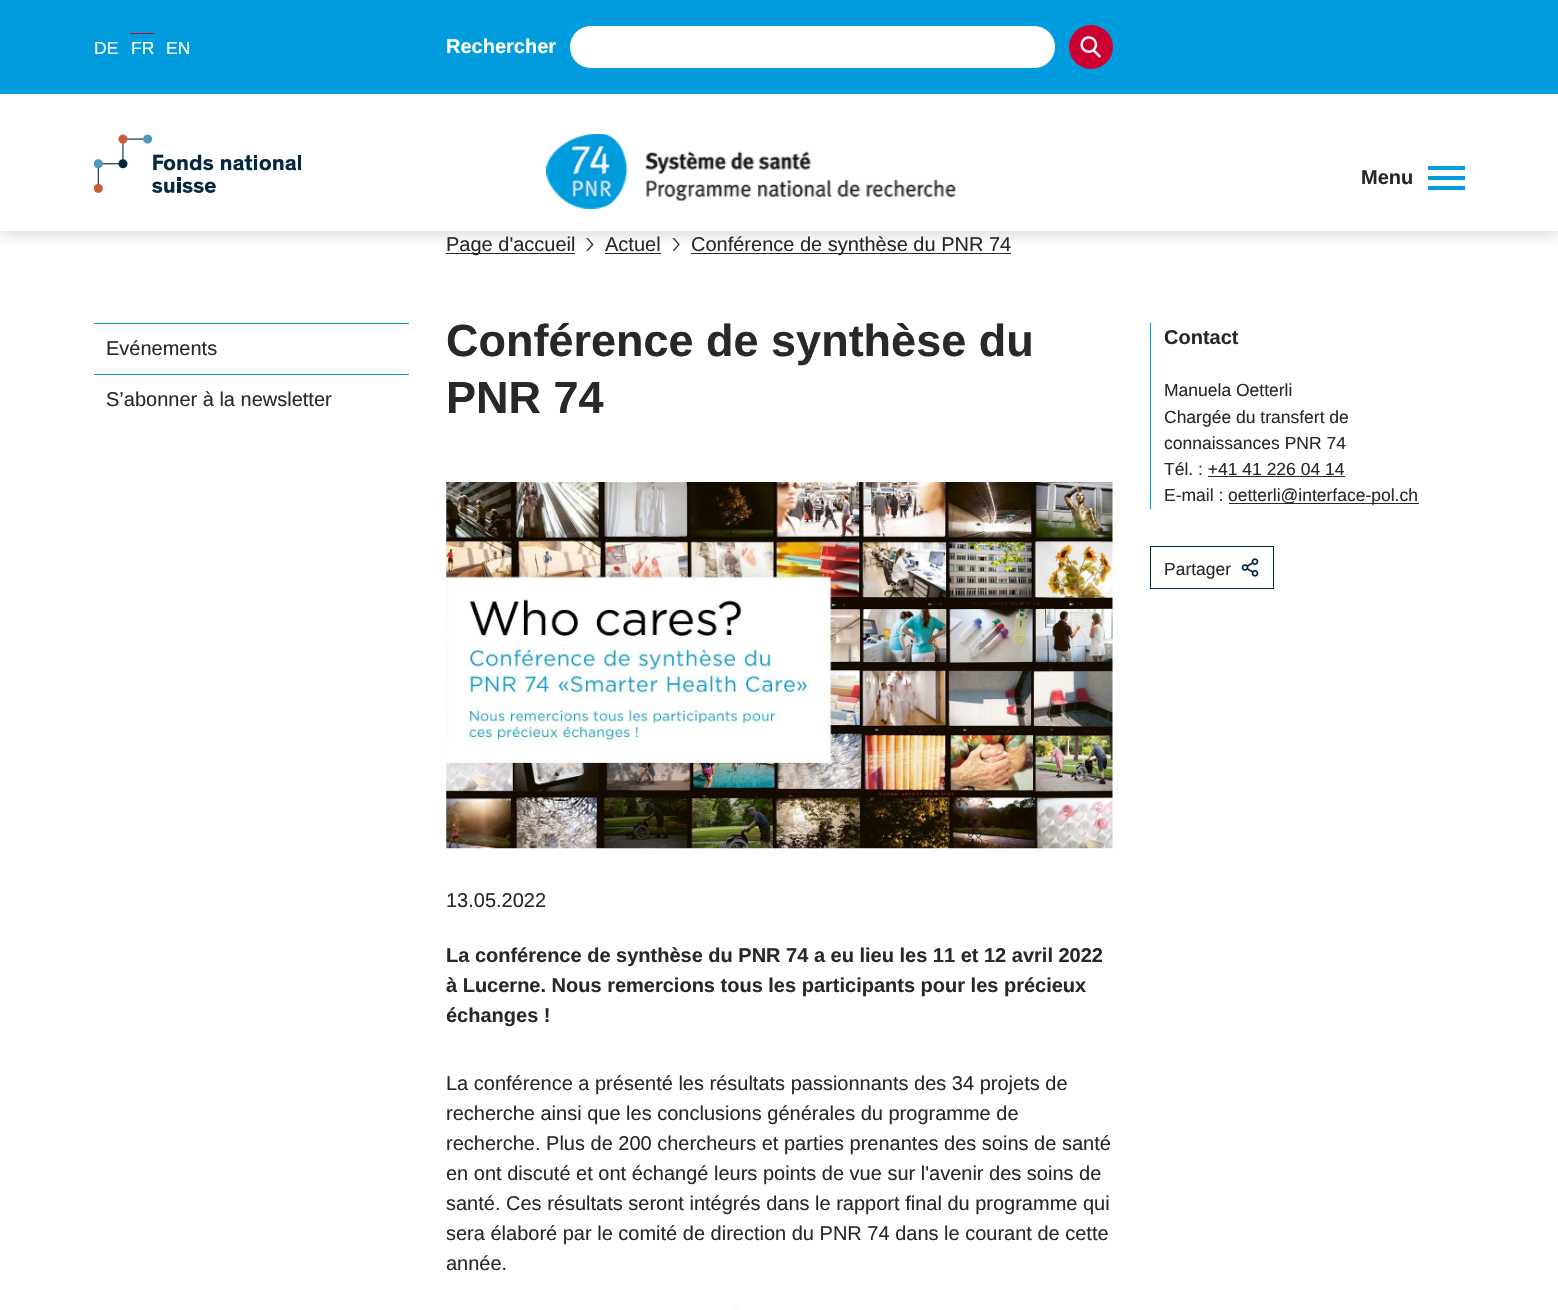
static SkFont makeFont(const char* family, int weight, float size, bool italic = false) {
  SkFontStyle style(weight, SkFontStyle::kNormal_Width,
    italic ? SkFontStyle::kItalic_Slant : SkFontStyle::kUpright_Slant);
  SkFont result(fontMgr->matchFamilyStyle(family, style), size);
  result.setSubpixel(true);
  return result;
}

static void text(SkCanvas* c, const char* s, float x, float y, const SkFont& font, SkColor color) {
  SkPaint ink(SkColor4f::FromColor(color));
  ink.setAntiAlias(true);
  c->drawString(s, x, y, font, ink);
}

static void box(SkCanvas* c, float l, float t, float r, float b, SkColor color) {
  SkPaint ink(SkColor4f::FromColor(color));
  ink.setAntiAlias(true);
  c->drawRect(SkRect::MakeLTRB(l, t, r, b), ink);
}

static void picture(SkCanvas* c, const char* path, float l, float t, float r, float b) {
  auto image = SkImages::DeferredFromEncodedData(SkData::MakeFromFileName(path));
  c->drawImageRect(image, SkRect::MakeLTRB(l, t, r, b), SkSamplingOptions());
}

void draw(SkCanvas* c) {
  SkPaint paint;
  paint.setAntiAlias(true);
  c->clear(0xffffffff);
  box(c, 446, 253, 575, 254, 0xff282828);
  picture(c, "img_04.png", 586, 238, 594, 251);
  box(c, 605, 253, 661, 254, 0xff282828);
  picture(c, "img_05.png", 672, 238, 680, 251);
  box(c, 691, 253, 1011, 254, 0xff282828);
  c->save();
  c->clipRect(SkRect::MakeLTRB(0, 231, 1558, 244));
  paint.setColor(0x40282828);
  paint.setMaskFilter(SkMaskFilter::MakeBlur(kNormal_SkBlurStyle, 9.5f));
  c->drawRect(SkRect::MakeLTRB(0, 0, 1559, 231), paint);
  paint.setMaskFilter(nullptr);
  c->restore();
  box(c, 0, 0, 1558, 94, 0xff009cde);
  SkFont face1 = makeFont("Liberation Sans", 400, 17.5f);
  text(c, "DE", 94, 54, face1, 0xffffffff);
  box(c, 130, 33, 154, 34, 0xffcc0033);
  text(c, "FR", 131, 54, face1, 0xffffffff);
  text(c, "EN", 166, 54, face1, 0xffffffff);
  SkFont face2 = makeFont("Liberation Sans", 700, 20);
  text(c, "Rechercher", 446, 53, face2, 0xffffffff);
  paint.setColor(0xffffffff);
  c->drawRoundRect(SkRect::MakeLTRB(569.5f, 25.5f, 1055.5f, 68.5f), 21.5f, 21.5f, paint);
  paint.setStyle(SkPaint::kStroke_Style);
  paint.setStrokeWidth(1);
  paint.setColor(0xff009cde);
  c->drawRoundRect(SkRect::MakeLTRB(569.5f, 25.5f, 1055.5f, 68.5f), 21.5f, 21.5f, paint);
  paint.setStyle(SkPaint::kFill_Style);
  paint.setColor(0xffcc0033);
  c->drawCircle(1091, 47, 22, paint);
  picture(c, "img_01.png", 1080, 36, 1101, 58);
  picture(c, "img_02.png", 94, 134, 301, 193);
  picture(c, "img_03.png", 546, 134, 956, 209);
  text(c, "Menu", 1361, 184, face2, 0xff282828);
  box(c, 1428, 176, 1465, 180, 0xff009cde);
  box(c, 1428, 166, 1465, 170, 0xff009cde);
  box(c, 1428, 186, 1465, 190, 0xff009cde);
  SkFont face3 = makeFont("Liberation Sans", 400, 20);
  text(c, "Page d'accueil", 446, 251, face3, 0xff282828);
  text(c, "Actuel", 605, 251, face3, 0xff282828);
  text(c, "Conférence de synthèse du PNR 74", 691, 251, face3, 0xff282828);
  box(c, 94, 323, 409, 324, 0xff009cde);
  text(c, "Evénements", 106, 355, face3, 0xff282828);
  box(c, 94, 374, 409, 375, 0xff009cde);
  text(c, "S’abonner à la newsletter", 106, 406, face3, 0xff282828);
  SkFont face4 = makeFont("Liberation Sans", 700, 45);
  text(c, "Conférence de synthèse du", 446, 356, face4, 0xff282828);
  text(c, "PNR 74", 446, 413, face4, 0xff282828);
  picture(c, "img_06.png", 446, 482, 1113, 849);
  text(c, "13.05.2022", 446, 907, face3, 0xff282828);
  text(c, "La conférence de synthèse du PNR 74 a eu lieu les 11 et 12 avril 2022", 446, 962, face2, 0xff282828);
  text(c, "à Lucerne. Nous remercions tous les participants pour les précieux", 446, 992, face2, 0xff282828);
  text(c, "échanges !", 446, 1022, face2, 0xff282828);
  text(c, "La conférence a présenté les résultats passionnants des 34 projets de", 446, 1090, face3, 0xff282828);
  text(c, "recherche ainsi que les conclusions générales du programme de", 446, 1120, face3, 0xff282828);
  text(c, "recherche. Plus de 200 chercheurs et parties prenantes des soins de santé", 446, 1150, face3, 0xff282828);
  text(c, "en ont discuté et ont échangé leurs points de vue sur l'avenir des soins de", 446, 1180, face3, 0xff282828);
  text(c, "santé. Ces résultats seront intégrés dans le rapport final du programme qui", 446, 1210, face3, 0xff282828);
  text(c, "sera élaboré par le comité de direction du PNR 74 dans le courant de cette", 446, 1240, face3, 0xff282828);
  text(c, "année.", 446, 1270, face3, 0xff282828);
  picture(c, "img_07.png", 733, 1309, 739, 1310);
  box(c, 1150, 323, 1151, 509, 0xff009cde);
  text(c, "Contact", 1164, 344, face2, 0xff282828);
  text(c, "Manuela Oetterli", 1164, 396, face1, 0xff282828);
  text(c, "Chargée du transfert de", 1164, 423, face1, 0xff282828);
  text(c, "connaissances PNR 74", 1164, 449, face1, 0xff282828);
  text(c, "Tél. : +41 41 226 04 14", 1164, 475, face1, 0xff282828);
  box(c, 1208, 476, 1345, 477, 0xff282828);
  text(c, "E-mail :", 1164, 501, face1, 0xff282828);
  box(c, 1229, 503, 1419, 504, 0xff282828);
  text(c, "oetterli@interface-pol.ch", 1228, 501, face1, 0xff282828);
  paint.setStyle(SkPaint::kStroke_Style);
  paint.setColor(0xff04293c);
  c->drawRect(SkRect::MakeLTRB(1150.5f, 546.5f, 1273.5f, 588.5f), paint);
  text(c, "Partager", 1164, 575, face1, 0xff282828);
  picture(c, "img_08.png", 1241, 558, 1259, 577);
}
